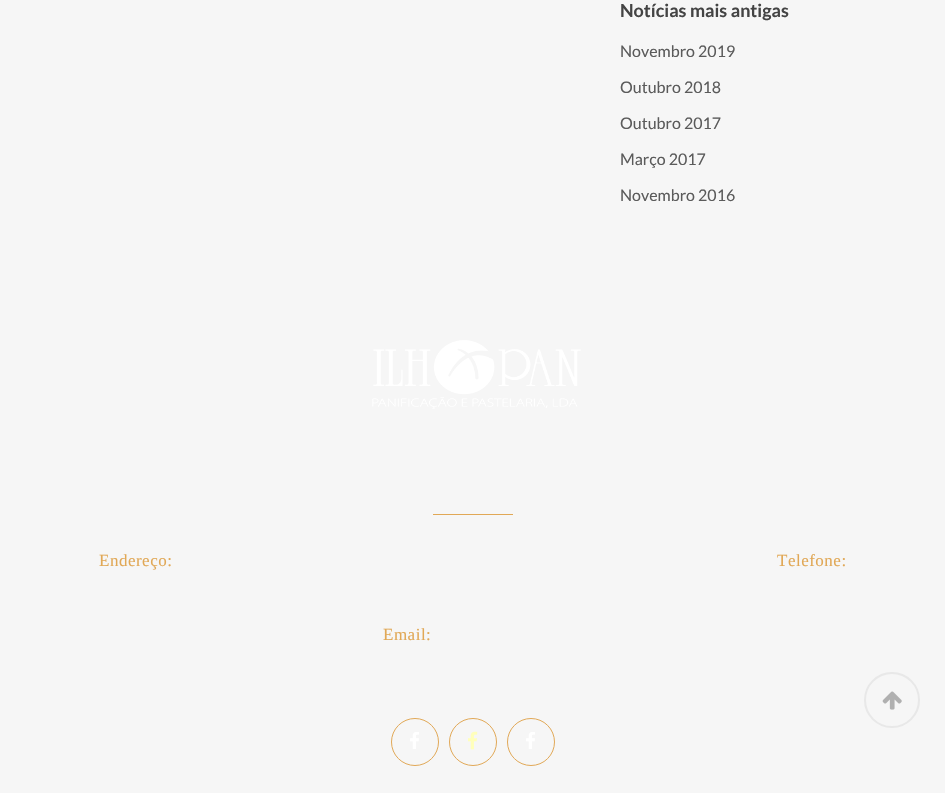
static SkFont makeFont(const char* family, int weight, float size, bool italic = false) {
  SkFontStyle style(weight, SkFontStyle::kNormal_Width,
    italic ? SkFontStyle::kItalic_Slant : SkFontStyle::kUpright_Slant);
  SkFont result(fontMgr->matchFamilyStyle(family, style), size);
  result.setSubpixel(true);
  return result;
}

static void text(SkCanvas* c, const char* s, float x, float y, const SkFont& font, SkColor color) {
  SkPaint ink(SkColor4f::FromColor(color));
  ink.setAntiAlias(true);
  c->drawString(s, x, y, font, ink);
}

static void spacedText(SkCanvas* c, const char* s, float x, float y, const SkFont& font, const SkPaint& ink, float letter, float word) {
  std::vector<SkGlyphID> glyphs(font.countText(s, strlen(s), SkTextEncoding::kUTF8));
  std::vector<float> xs(glyphs.size());
  font.textToGlyphs(s, strlen(s), SkTextEncoding::kUTF8, glyphs);
  font.getXPos(glyphs, xs, x);
  float extra = 0;
  for (size_t i = 0; i < glyphs.size(); i++) {
    xs[i] += extra;
    extra += letter + word * (glyphs[i] == font.unicharToGlyph(' '));
  }
  c->drawTextBlob(SkTextBlob::MakeFromPosHGlyphs(glyphs, xs, y, font), 0, 0, ink);
}

static void box(SkCanvas* c, float l, float t, float r, float b, SkColor color) {
  SkPaint ink(SkColor4f::FromColor(color));
  ink.setAntiAlias(true);
  c->drawRect(SkRect::MakeLTRB(l, t, r, b), ink);
}

static void picture(SkCanvas* c, const char* path, float l, float t, float r, float b) {
  auto image = SkImages::DeferredFromEncodedData(SkData::MakeFromFileName(path));
  c->drawImageRect(image, SkRect::MakeLTRB(l, t, r, b), SkSamplingOptions());
}

void draw(SkCanvas* c) {
  SkPaint paint;
  paint.setAntiAlias(true);
  c->clear(0xfff6f6f6);
  SkFont face1 = makeFont("Lato", 700, 18);
  text(c, "Notícias mais antigas", 620, 17, face1, 0xff444444);
  SkFont face2 = makeFont("Lato", 400, 16);
  text(c, "Novembro 2019", 620, 57, face2, 0xff5b5b5b);
  text(c, "Outubro 2018", 620, 93, face2, 0xff5b5b5b);
  text(c, "Outubro 2017", 620, 129, face2, 0xff5b5b5b);
  text(c, "Março 2017", 620, 165, face2, 0xff5b5b5b);
  text(c, "Novembro 2016", 620, 201, face2, 0xff5b5b5b);
  picture(c, "img_01.png", 372, 340, 581, 409);
  box(c, 433, 514, 513, 515, 0xffe1a856);
  SkFont face3 = makeFont("Tinos", 400, 17);
  paint.setColor(0xffe1a856);
  spacedText(c, "Endereço:", 99, 566, face3, paint, 0.5f, 0);
  spacedText(c, "Telefone:", 777, 566, face3, paint, 0.5f, 0);
  spacedText(c, "Email:", 383, 640, face3, paint, 0.5f, 0);
  paint.setStyle(SkPaint::kStroke_Style);
  paint.setStrokeWidth(1);
  c->drawCircle(415, 742, 23.5f, paint);
  picture(c, "img_02.png", 410, 732, 419, 749);
  c->drawCircle(473, 742, 23.5f, paint);
  picture(c, "img_03.png", 468, 731, 478, 750);
  c->drawCircle(531, 742, 23.5f, paint);
  picture(c, "img_02.png", 526, 732, 535, 749);
  paint.setStrokeWidth(2);
  paint.setColor(0xffe8e8e8);
  c->drawCircle(892, 700, 27, paint);
  picture(c, "img_04.png", 882, 691, 902, 710);
}
